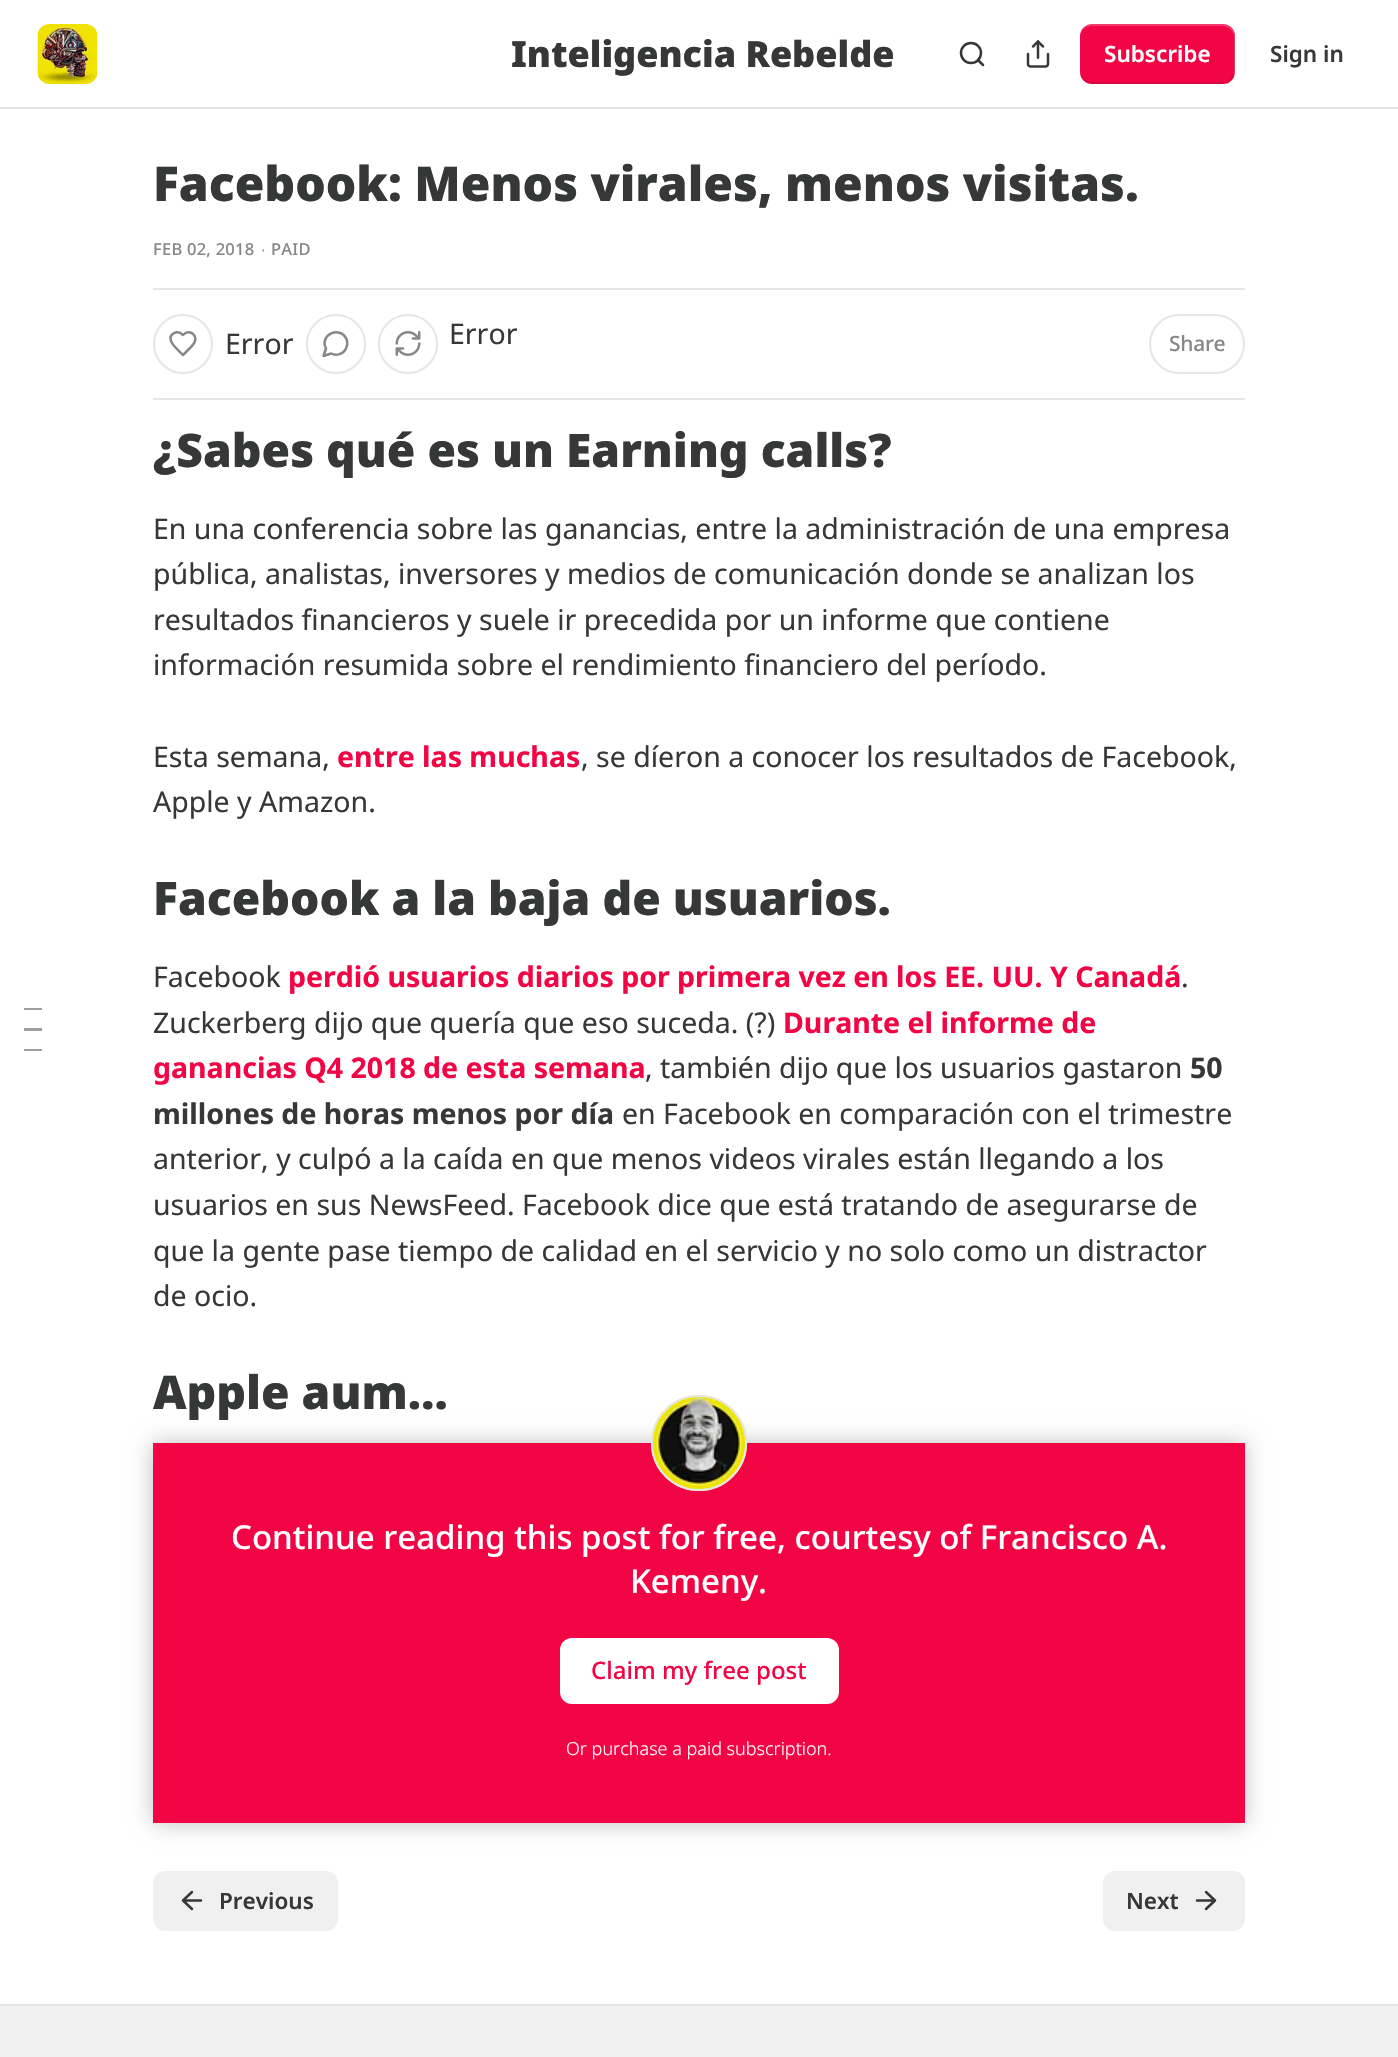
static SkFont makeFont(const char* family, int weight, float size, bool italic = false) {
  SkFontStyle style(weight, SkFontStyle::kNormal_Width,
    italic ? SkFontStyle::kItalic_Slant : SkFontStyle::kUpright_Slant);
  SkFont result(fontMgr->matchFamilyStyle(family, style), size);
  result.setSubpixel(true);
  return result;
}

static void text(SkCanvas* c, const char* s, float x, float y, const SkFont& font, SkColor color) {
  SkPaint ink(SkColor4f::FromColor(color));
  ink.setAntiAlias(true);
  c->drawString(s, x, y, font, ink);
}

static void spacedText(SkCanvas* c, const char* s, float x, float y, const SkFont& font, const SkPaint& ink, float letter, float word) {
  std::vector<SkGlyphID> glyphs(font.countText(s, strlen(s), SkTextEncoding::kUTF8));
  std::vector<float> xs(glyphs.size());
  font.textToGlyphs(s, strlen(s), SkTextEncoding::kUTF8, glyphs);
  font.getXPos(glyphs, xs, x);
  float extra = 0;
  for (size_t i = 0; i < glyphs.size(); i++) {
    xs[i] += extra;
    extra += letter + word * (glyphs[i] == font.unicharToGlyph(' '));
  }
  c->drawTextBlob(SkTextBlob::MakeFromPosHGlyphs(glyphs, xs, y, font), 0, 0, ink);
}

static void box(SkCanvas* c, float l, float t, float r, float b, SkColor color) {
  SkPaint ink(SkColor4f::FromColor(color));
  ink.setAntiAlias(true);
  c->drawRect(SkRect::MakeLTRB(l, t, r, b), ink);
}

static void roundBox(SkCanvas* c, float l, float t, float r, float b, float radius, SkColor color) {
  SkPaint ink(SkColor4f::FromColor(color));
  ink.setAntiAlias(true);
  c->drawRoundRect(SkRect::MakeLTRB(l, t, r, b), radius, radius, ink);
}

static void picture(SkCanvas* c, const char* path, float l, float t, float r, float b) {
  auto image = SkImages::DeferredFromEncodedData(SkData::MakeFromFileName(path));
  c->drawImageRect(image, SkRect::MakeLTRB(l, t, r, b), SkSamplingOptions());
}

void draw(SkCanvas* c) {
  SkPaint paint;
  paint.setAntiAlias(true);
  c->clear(0xffffffff);
  box(c, 0, 107, 1398, 109, 0xffe6e6e6);
  picture(c, "img_01.png", 37, 24, 98, 84);
  SkFont face1 = makeFont("Noto Sans", 900, 36);
  text(c, "Inteligencia Rebelde", 511, 67, face1, 0xff363737);
  paint.setStyle(SkPaint::kStroke_Style);
  paint.setStrokeWidth(2.5f);
  paint.setColor(0xff363737);
  c->drawCircle(971, 53, 10, paint);
  paint.setStrokeCap(SkPaint::kRound_Cap);
  paint.setStrokeJoin(SkPaint::kRound_Join);
  c->drawPath(SkPathBuilder().moveTo(983, 65).lineTo(978, 60).detach(), paint);
  picture(c, "img_02.png", 1026, 40, 1050, 68);
  roundBox(c, 1080, 24, 1235, 84, 12, 0xfff20544);
  paint.setStyle(SkPaint::kFill_Style);
  paint.setColor(0x1a000000);
  c->drawPath(SkPathBuilder().moveTo(1080, 70).lineTo(1080, 72).cubicTo(1080, 79, 1085, 84, 1092, 84).lineTo(1223, 84).cubicTo(1230, 84, 1235, 79, 1235, 72).lineTo(1235, 36).cubicTo(1235, 34, 1234, 31, 1233, 29).lineTo(1234, 34).lineTo(1234, 70).cubicTo(1234, 77, 1229, 82, 1222, 82).lineTo(1092, 82).cubicTo(1085, 82, 1080, 77, 1080, 70).close().detach(), paint);
  paint.setColor(0x33ffffff);
  c->drawPath(SkPathBuilder().moveTo(1092, 26).lineTo(1222, 26).cubicTo(1229, 26, 1234, 31, 1234, 38).lineTo(1234, 74).lineTo(1233, 79).cubicTo(1234, 77, 1235, 74, 1235, 72).lineTo(1235, 36).cubicTo(1235, 29, 1230, 24, 1223, 24).lineTo(1092, 24).cubicTo(1085, 24, 1080, 29, 1080, 36).lineTo(1080, 38).cubicTo(1080, 31, 1085, 26, 1092, 26).close().detach(), paint);
  SkFont face2 = makeFont("Noto Sans", 600, 22.5f);
  text(c, "Subscribe", 1104, 62, face2, 0xffffffff);
  text(c, "Sign in", 1270, 62, face2, 0xff363737);
  SkFont face3 = makeFont("Noto Sans", 900, 48);
  text(c, "Facebook: Menos virales, menos visitas.", 153, 201, face3, 0xff363737);
  SkFont face4 = makeFont("Noto Sans", 500, 16.5f);
  paint.setColor(0xff868787);
  spacedText(c, "FEB 02, 2018", 153, 255, face4, paint, 0.25f, 0);
  SkFont face5 = makeFont("Liberation Sans", 400, 16.5f);
  spacedText(c, "∙", 261, 255, face5, paint, 0.25f, 0);
  spacedText(c, "PAID", 271, 255, face4, paint, 0.25f, 0);
  box(c, 153, 288, 1245, 290, 0xffe6e6e6);
  box(c, 153, 398, 1245, 400, 0xffe6e6e6);
  paint.setStyle(SkPaint::kStroke_Style);
  paint.setStrokeWidth(2);
  paint.setStrokeCap(SkPaint::kButt_Cap);
  paint.setStrokeJoin(SkPaint::kMiter_Join);
  paint.setColor(0xffe6e6e6);
  c->drawCircle(183, 344, 29, paint);
  paint.setStrokeWidth(2.5f);
  paint.setStrokeCap(SkPaint::kRound_Cap);
  paint.setStrokeJoin(SkPaint::kRound_Join);
  paint.setColor(0xff868787);
  c->drawPath(SkPathBuilder().moveTo(192, 346).cubicTo(201, 337, 190, 327.5f, 183, 335).cubicTo(177.5f, 329.5f, 168.5f, 333.5f, 171, 341).cubicTo(172, 345, 180, 352, 183, 355).close().detach(), paint);
  SkFont face6 = makeFont("Noto Sans", 400, 28.5f);
  text(c, "Error", 225, 354, face6, 0xff363737);
  paint.setStrokeWidth(2);
  paint.setStrokeCap(SkPaint::kButt_Cap);
  paint.setStrokeJoin(SkPaint::kMiter_Join);
  paint.setColor(0xffe6e6e6);
  c->drawCircle(336, 344, 29, paint);
  paint.setStrokeWidth(2.5f);
  paint.setStrokeCap(SkPaint::kRound_Cap);
  paint.setStrokeJoin(SkPaint::kRound_Join);
  paint.setColor(0xff868787);
  c->drawPath(SkPathBuilder().moveTo(331, 353.5f).cubicTo(336.5f, 356.5f, 343.5f, 354, 346, 348.5f).cubicTo(347.5f, 345.5f, 347.5f, 342, 346.5f, 339).cubicTo(340, 325, 319, 335, 326, 348.5f).lineTo(323.5f, 356).close().detach(), paint);
  paint.setStrokeWidth(2);
  paint.setStrokeCap(SkPaint::kButt_Cap);
  paint.setStrokeJoin(SkPaint::kMiter_Join);
  paint.setColor(0xffe6e6e6);
  c->drawCircle(408, 344, 29, paint);
  picture(c, "img_03.png", 395, 331, 421, 356);
  text(c, "Error", 449, 344, face6, 0xff363737);
  c->drawRoundRect(SkRect::MakeLTRB(1150, 315, 1244, 373), 29, 29, paint);
  SkFont face7 = makeFont("Noto Sans", 500, 21);
  paint.setStyle(SkPaint::kFill_Style);
  paint.setColor(0xff868787);
  spacedText(c, "Share", 1169, 351, face7, paint, -0.25f, 0);
  box(c, 24, 1008, 42, 1010, 0xff9e9f9f);
  box(c, 24, 1028, 42, 1031, 0xff9e9f9f);
  box(c, 24, 1049, 42, 1051, 0xff9e9f9f);
  SkFont face8 = makeFont("Noto Sans", 900, 46.25f);
  text(c, "¿Sabes qué es un Earning calls?", 153, 467, face8, 0xff363737);
  text(c, "En una conferencia sobre las ganancias, entre la administración de una empresa", 153, 539, face6, 0xff363737);
  text(c, "pública, analistas, inversores y medios de comunicación donde se analizan los", 153, 584, face6, 0xff363737);
  text(c, "resultados financieros y suele ir precedida por un informe que contiene", 153, 630, face6, 0xff363737);
  text(c, "información resumida sobre el rendimiento financiero del período.", 153, 675, face6, 0xff363737);
  text(c, "Esta semana,", 153, 767, face6, 0xff363737);
  SkFont face9 = makeFont("Noto Sans", 700, 28.5f);
  text(c, "entre las muchas", 337, 767, face9, 0xfff20544);
  text(c, ", se díeron a conocer los resultados de Facebook,", 581, 767, face6, 0xff363737);
  text(c, "Apple y Amazon.", 153, 812, face6, 0xff363737);
  text(c, "Facebook a la baja de usuarios.", 153, 915, face8, 0xff363737);
  text(c, "Facebook", 153, 987, face6, 0xff363737);
  text(c, "perdió usuarios diarios por primera vez en los EE. UU. Y Canadá", 288, 987, face9, 0xfff20544);
  text(c, ".", 1181, 987, face6, 0xff363737);
  text(c, "Zuckerberg dijo que quería que eso suceda. (?)", 153, 1033, face6, 0xff363737);
  text(c, "Durante el informe de", 783, 1033, face9, 0xfff20544);
  text(c, "ganancias Q4 2018 de esta semana", 153, 1078, face9, 0xfff20544);
  text(c, ", también dijo que los usuarios gastaron", 645, 1078, face6, 0xff363737);
  text(c, "50", 1190, 1078, face9, 0xff363737);
  text(c, "millones de horas menos por día", 153, 1124, face9, 0xff363737);
  text(c, "en Facebook en comparación con el trimestre", 622, 1124, face6, 0xff363737);
  text(c, "anterior, y culpó a la caída en que menos videos virales están llegando a los", 153, 1169, face6, 0xff363737);
  text(c, "usuarios en sus NewsFeed. Facebook dice que está tratando de asegurarse de", 153, 1215, face6, 0xff363737);
  text(c, "que la gente pase tiempo de calidad en el servicio y no solo como un distractor", 153, 1261, face6, 0xff363737);
  text(c, "de ocio.", 153, 1306, face6, 0xff363737);
  text(c, "Apple aum…", 153, 1409, face8, 0xff363737);
  box(c, 153, 1443, 1245, 1823, 0xfff20544);
  paint.setColor(0xffffffff);
  c->drawRoundRect(SkRect::MakeLTRB(561, 1639, 838, 1703), 11, 11, paint);
  paint.setStyle(SkPaint::kStroke_Style);
  c->drawRoundRect(SkRect::MakeLTRB(561, 1639, 838, 1703), 11, 11, paint);
  c->save();
  c->clipPath(SkPathBuilder(SkPathFillType::kEvenOdd).moveTo(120, 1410).lineTo(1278, 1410).lineTo(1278, 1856).lineTo(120, 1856).close().moveTo(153, 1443).lineTo(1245, 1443).lineTo(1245, 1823).lineTo(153, 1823).close().detach(), true);
  paint.setStyle(SkPaint::kFill_Style);
  paint.setColor(0x40000000);
  paint.setMaskFilter(SkMaskFilter::MakeBlur(kNormal_SkBlurStyle, 10.5f));
  c->drawRect(SkRect::MakeLTRB(153, 1443, 1245, 1823), paint);
  paint.setMaskFilter(nullptr);
  c->restore();
  paint.setStyle(SkPaint::kStroke_Style);
  paint.setColor(0xffe6e6e6);
  c->drawCircle(699, 1443, 47, paint);
  picture(c, "img_04.png", 651, 1395, 747, 1491);
  c->drawCircle(699, 1443, 47, paint);
  SkFont face10 = makeFont("Noto Sans", 500, 33);
  text(c, "Continue reading this post for free, courtesy of Francisco A.", 231, 1549, face10, 0xffffffff);
  text(c, "Kemeny.", 630, 1593, face10, 0xffffffff);
  SkFont face11 = makeFont("Noto Sans", 500, 24);
  text(c, "Claim my free post", 591, 1679, face11, 0xfff20544);
  SkFont face12 = makeFont("Noto Sans", 300, 18);
  text(c, "Or purchase a paid subscription.", 566, 1755, face12, 0xffffffff);
  roundBox(c, 153, 1871, 338, 1931, 12, 0xfff0f0f0);
  paint.setStrokeWidth(2.5f);
  paint.setStrokeCap(SkPaint::kRound_Cap);
  paint.setStrokeJoin(SkPaint::kRound_Join);
  paint.setColor(0xff363737);
  c->drawPath(SkPathBuilder().moveTo(192, 1909).lineTo(183, 1900.5f).lineTo(192, 1892).moveTo(201, 1900.5f).lineTo(183, 1900.5f).detach(), paint);
  text(c, "Previous", 219, 1909, face2, 0xff363737);
  roundBox(c, 1103, 1871, 1245, 1931, 12, 0xfff0f0f0);
  text(c, "Next", 1126, 1909, face2, 0xff363737);
  c->drawPath(SkPathBuilder().moveTo(1197, 1900.5f).lineTo(1215, 1900.5f).moveTo(1206, 1892).lineTo(1215, 1900.5f).lineTo(1206, 1909).detach(), paint);
  box(c, 0, 2006, 1398, 2057, 0xfff0f0f0);
  box(c, 0, 2004, 1398, 2006, 0xffe6e6e6);
}
